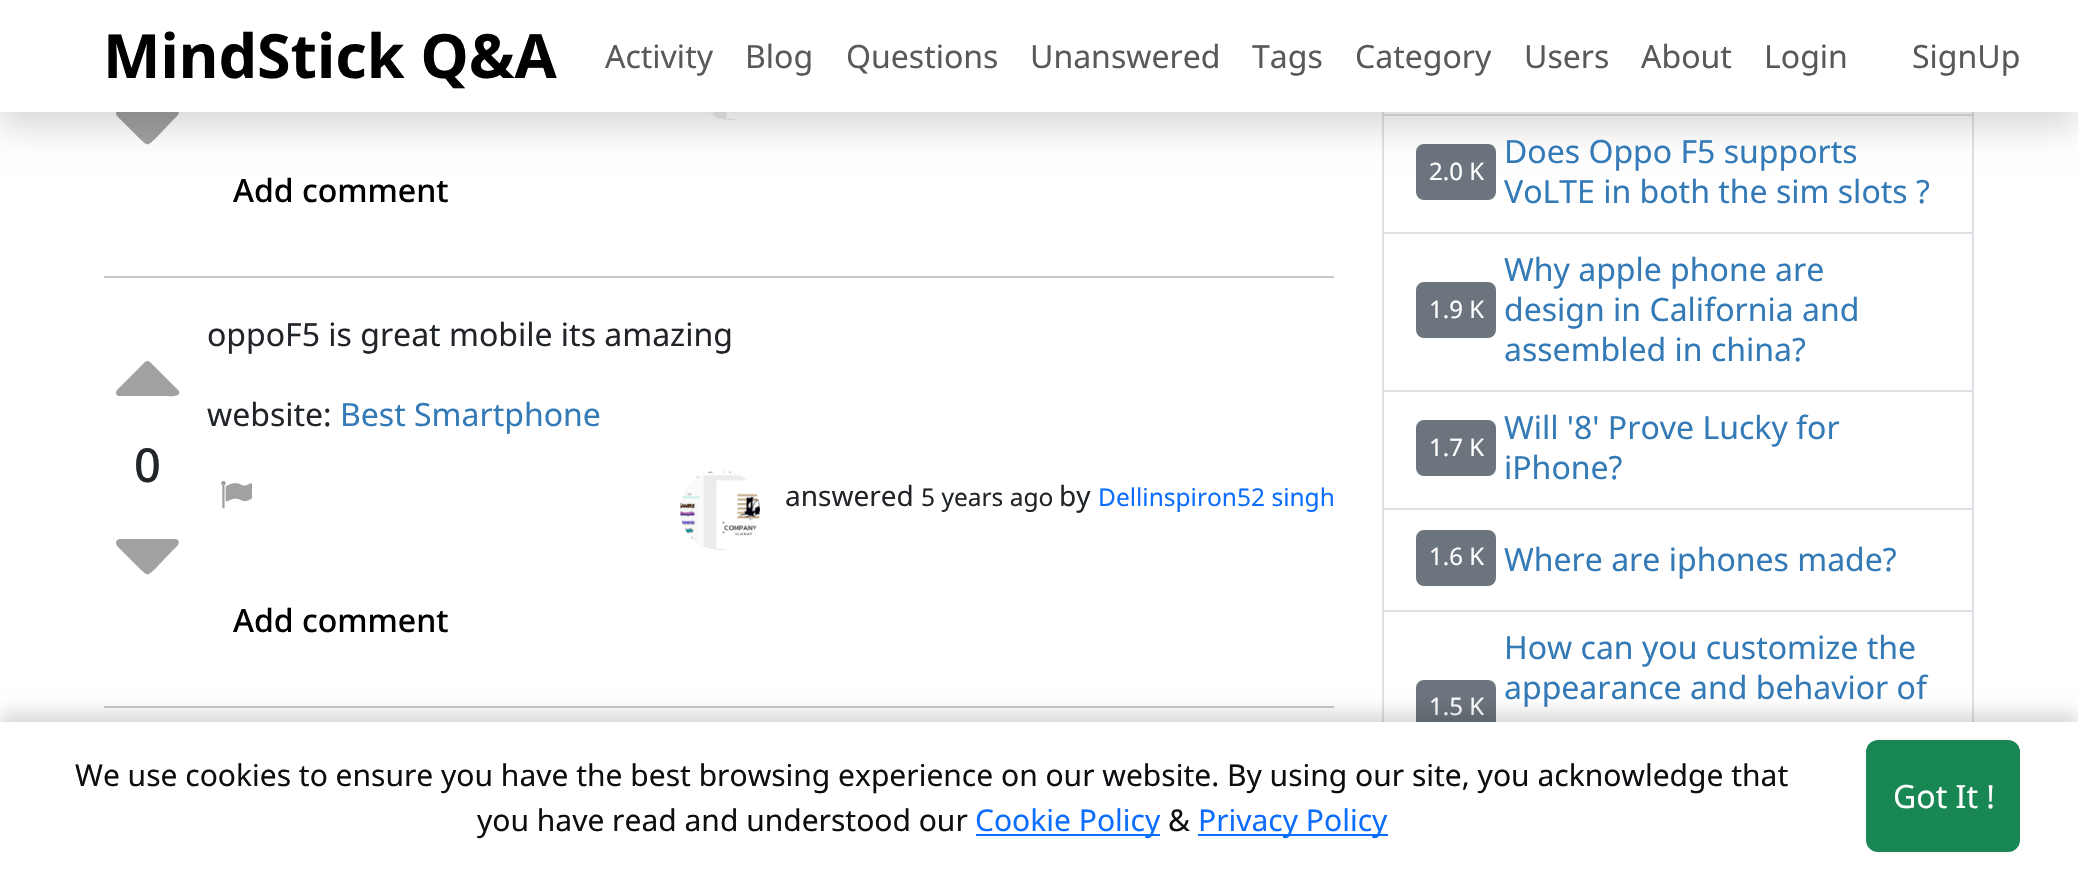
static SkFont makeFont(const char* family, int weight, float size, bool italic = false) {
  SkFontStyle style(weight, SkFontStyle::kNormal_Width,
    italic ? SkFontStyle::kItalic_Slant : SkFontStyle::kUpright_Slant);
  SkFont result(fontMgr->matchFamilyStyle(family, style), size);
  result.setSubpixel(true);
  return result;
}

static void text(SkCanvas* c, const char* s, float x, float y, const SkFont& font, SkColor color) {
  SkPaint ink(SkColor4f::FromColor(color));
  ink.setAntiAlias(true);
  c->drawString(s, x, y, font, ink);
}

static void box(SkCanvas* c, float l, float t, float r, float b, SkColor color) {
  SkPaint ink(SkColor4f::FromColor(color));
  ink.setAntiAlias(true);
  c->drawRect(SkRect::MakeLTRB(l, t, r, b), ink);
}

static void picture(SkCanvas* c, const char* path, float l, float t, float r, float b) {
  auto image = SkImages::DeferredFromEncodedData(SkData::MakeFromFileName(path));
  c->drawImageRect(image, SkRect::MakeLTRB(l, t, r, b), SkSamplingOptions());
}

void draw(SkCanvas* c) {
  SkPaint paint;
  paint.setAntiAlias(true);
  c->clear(0xffffffff);
  paint.setColor(0xffa1a1a1);
  c->drawPath(SkPathBuilder().moveTo(178, 110).cubicTo(181, 114, 175, 118, 173, 120).lineTo(155, 139).cubicTo(147, 146, 148, 146, 140, 139).lineTo(117, 116).cubicTo(115, 113, 116, 109, 120, 109).lineTo(176, 109).close().detach(), paint);
  picture(c, "img_01.png", 706, 112, 754, 120);
  box(c, 1972, 112, 1974, 722, 0xffdee2e6);
  box(c, 1382, 114, 1974, 116, 0xffdee2e6);
  box(c, 1382, 112, 1384, 116, 0xffdee2e6);
  box(c, 1382, 232, 1974, 234, 0xffdee2e6);
  box(c, 1382, 116, 1384, 234, 0xffdee2e6);
  paint.setColor(0xff6c757d);
  c->drawRoundRect(SkRect::MakeLTRB(1417, 145, 1495, 199), 7, 7, paint);
  paint.setStyle(SkPaint::kStroke_Style);
  paint.setStrokeWidth(2);
  c->drawRoundRect(SkRect::MakeLTRB(1417, 145, 1495, 199), 7, 7, paint);
  paint.setStyle(SkPaint::kFill_Style);
  paint.setColor(0x26000000);
  paint.setMaskFilter(SkMaskFilter::MakeBlur(kNormal_SkBlurStyle, 16));
  c->drawRect(SkRect::MakeLTRB(0, 16, 2078, 128), paint);
  paint.setMaskFilter(nullptr);
  box(c, 0, 0, 2078, 112, 0xffffffff);
  SkFont face1 = makeFont("Noto Sans", 700, 61);
  text(c, "MindStick Q&A", 103, 78, face1, 0xff000000);
  SkFont face2 = makeFont("Noto Sans", 400, 32);
  text(c, "Activity", 605, 68, face2, 0xff595959);
  text(c, "Blog", 745, 68, face2, 0xff595959);
  text(c, "Questions", 846, 68, face2, 0xff595959);
  text(c, "Unanswered", 1030, 68, face2, 0xff595959);
  text(c, "Tags", 1252, 68, face2, 0xff595959);
  text(c, "Category", 1355, 68, face2, 0xff595959);
  text(c, "Users", 1524, 68, face2, 0xff595959);
  text(c, "About", 1641, 68, face2, 0xff595959);
  text(c, "Login", 1764, 68, face2, 0xff595959);
  text(c, "SignUp", 1912, 68, face2, 0xff595959);
  SkFont face3 = makeFont("Noto Sans", 500, 32);
  text(c, "Add comment", 233, 202, face3, 0xff000000);
  box(c, 104, 276, 1334, 278, 0xffc8c9ca);
  paint.setColor(0xffa1a1a1);
  c->drawPath(SkPathBuilder().moveTo(178, 390).lineTo(179, 391).cubicTo(182, 398, 167, 396, 166, 396).lineTo(119, 396).cubicTo(116, 396, 115, 392, 117, 390).lineTo(140, 367).cubicTo(148, 359, 147, 359, 155, 367).close().detach(), paint);
  SkFont face4 = makeFont("Noto Sans", 500, 47);
  text(c, "0", 134, 482, face4, 0xff212529);
  c->drawPath(SkPathBuilder().moveTo(178, 540).cubicTo(181, 544, 175, 548, 173, 550).lineTo(155, 569).cubicTo(147, 576, 148, 576, 140, 569).lineTo(117, 546).cubicTo(115, 543, 116, 539, 120, 539).lineTo(176, 539).close().detach(), paint);
  text(c, "oppoF5 is great mobile its amazing", 207, 346, face2, 0xff212529);
  text(c, "website:", 207, 426, face2, 0xff212529);
  text(c, "Best Smartphone", 340, 426, face2, 0xff337ab7);
  picture(c, "img_02.png", 221, 480, 252, 509);
  picture(c, "img_03.png", 680, 471, 760, 550);
  SkFont face5 = makeFont("Noto Sans", 400, 28);
  text(c, "answered", 785, 506, face5, 0xff212529);
  SkFont face6 = makeFont("Noto Sans", 400, 24.5f);
  text(c, "5 years ago", 921, 506, face6, 0xff212529);
  text(c, "by", 1059, 506, face5, 0xff212529);
  text(c, "Dellinspiron52 singh", 1098, 506, face6, 0xff0d6efd);
  text(c, "Add comment", 233, 632, face3, 0xff000000);
  box(c, 104, 706, 1334, 708, 0xffc8c9ca);
  SkFont face7 = makeFont("Noto Sans", 400, 24);
  text(c, "2.0 K", 1429, 180, face7, 0xffffffff);
  text(c, "Does Oppo F5 supports", 1504, 163, face2, 0xff337ab7);
  text(c, "VoLTE in both the sim slots ?", 1504, 203, face2, 0xff337ab7);
  box(c, 1382, 390, 1974, 392, 0xffdee2e6);
  box(c, 1382, 234, 1384, 392, 0xffdee2e6);
  paint.setColor(0xff6c757d);
  c->drawRoundRect(SkRect::MakeLTRB(1417, 283, 1495, 337), 7, 7, paint);
  paint.setStyle(SkPaint::kStroke_Style);
  c->drawRoundRect(SkRect::MakeLTRB(1417, 283, 1495, 337), 7, 7, paint);
  text(c, "1.9 K", 1429, 318, face7, 0xffffffff);
  text(c, "Why apple phone are", 1504, 281, face2, 0xff337ab7);
  text(c, "design in California and", 1504, 321, face2, 0xff337ab7);
  text(c, "assembled in china?", 1504, 361, face2, 0xff337ab7);
  box(c, 1382, 508, 1974, 510, 0xffdee2e6);
  box(c, 1382, 392, 1384, 510, 0xffdee2e6);
  paint.setStyle(SkPaint::kFill_Style);
  c->drawRoundRect(SkRect::MakeLTRB(1417, 421, 1495, 475), 7, 7, paint);
  paint.setStyle(SkPaint::kStroke_Style);
  c->drawRoundRect(SkRect::MakeLTRB(1417, 421, 1495, 475), 7, 7, paint);
  text(c, "1.7 K", 1429, 456, face7, 0xffffffff);
  text(c, "Will '8' Prove Lucky for", 1504, 439, face2, 0xff337ab7);
  text(c, "iPhone?", 1504, 479, face2, 0xff337ab7);
  box(c, 1382, 610, 1974, 612, 0xffdee2e6);
  box(c, 1382, 510, 1384, 722, 0xffdee2e6);
  paint.setStyle(SkPaint::kFill_Style);
  c->drawRoundRect(SkRect::MakeLTRB(1417, 531, 1495, 585), 7, 7, paint);
  paint.setStyle(SkPaint::kStroke_Style);
  c->drawRoundRect(SkRect::MakeLTRB(1417, 531, 1495, 585), 7, 7, paint);
  text(c, "1.6 K", 1429, 565, face7, 0xffffffff);
  text(c, "Where are iphones made?", 1504, 571, face2, 0xff337ab7);
  paint.setStyle(SkPaint::kFill_Style);
  c->drawRoundRect(SkRect::MakeLTRB(1417, 681, 1495, 735), 7, 7, paint);
  paint.setStyle(SkPaint::kStroke_Style);
  c->drawRoundRect(SkRect::MakeLTRB(1417, 681, 1495, 735), 7, 7, paint);
  text(c, "1.5 K", 1429, 715, face7, 0xffffffff);
  text(c, "How can you customize the", 1504, 659, face2, 0xff337ab7);
  text(c, "appearance and behavior of", 1504, 699, face2, 0xff337ab7);
  paint.setStyle(SkPaint::kFill_Style);
  paint.setColor(0x24000000);
  paint.setMaskFilter(SkMaskFilter::MakeBlur(kNormal_SkBlurStyle, 8));
  c->drawRect(SkRect::MakeLTRB(0, 712, 2078, 860), paint);
  paint.setMaskFilter(nullptr);
  box(c, 0, 722, 2078, 870, 0xffffffff);
  SkFont face8 = makeFont("Noto Sans", 400, 30);
  text(c, "We use cookies to ensure you have the best browsing experience on our website. By using our site, you acknowledge that", 75, 786, face8, 0xff0e0e12);
  text(c, "you have read and understood our", 477, 831, face8, 0xff0e0e12);
  box(c, 976, 834, 1160, 836, 0xff0d6efd);
  text(c, "Cookie Policy", 975, 831, face8, 0xff0d6efd);
  text(c, "&", 1168, 831, face8, 0xff0e0e12);
  box(c, 1198, 834, 1388, 836, 0xff0d6efd);
  text(c, "Privacy Policy", 1198, 831, face8, 0xff0d6efd);
  paint.setColor(0xff198754);
  c->drawRoundRect(SkRect::MakeLTRB(1867, 741, 2019, 851), 11, 11, paint);
  paint.setStyle(SkPaint::kStroke_Style);
  c->drawRoundRect(SkRect::MakeLTRB(1867, 741, 2019, 851), 11, 11, paint);
  text(c, "Got It !", 1893, 808, face2, 0xffffffff);
}
